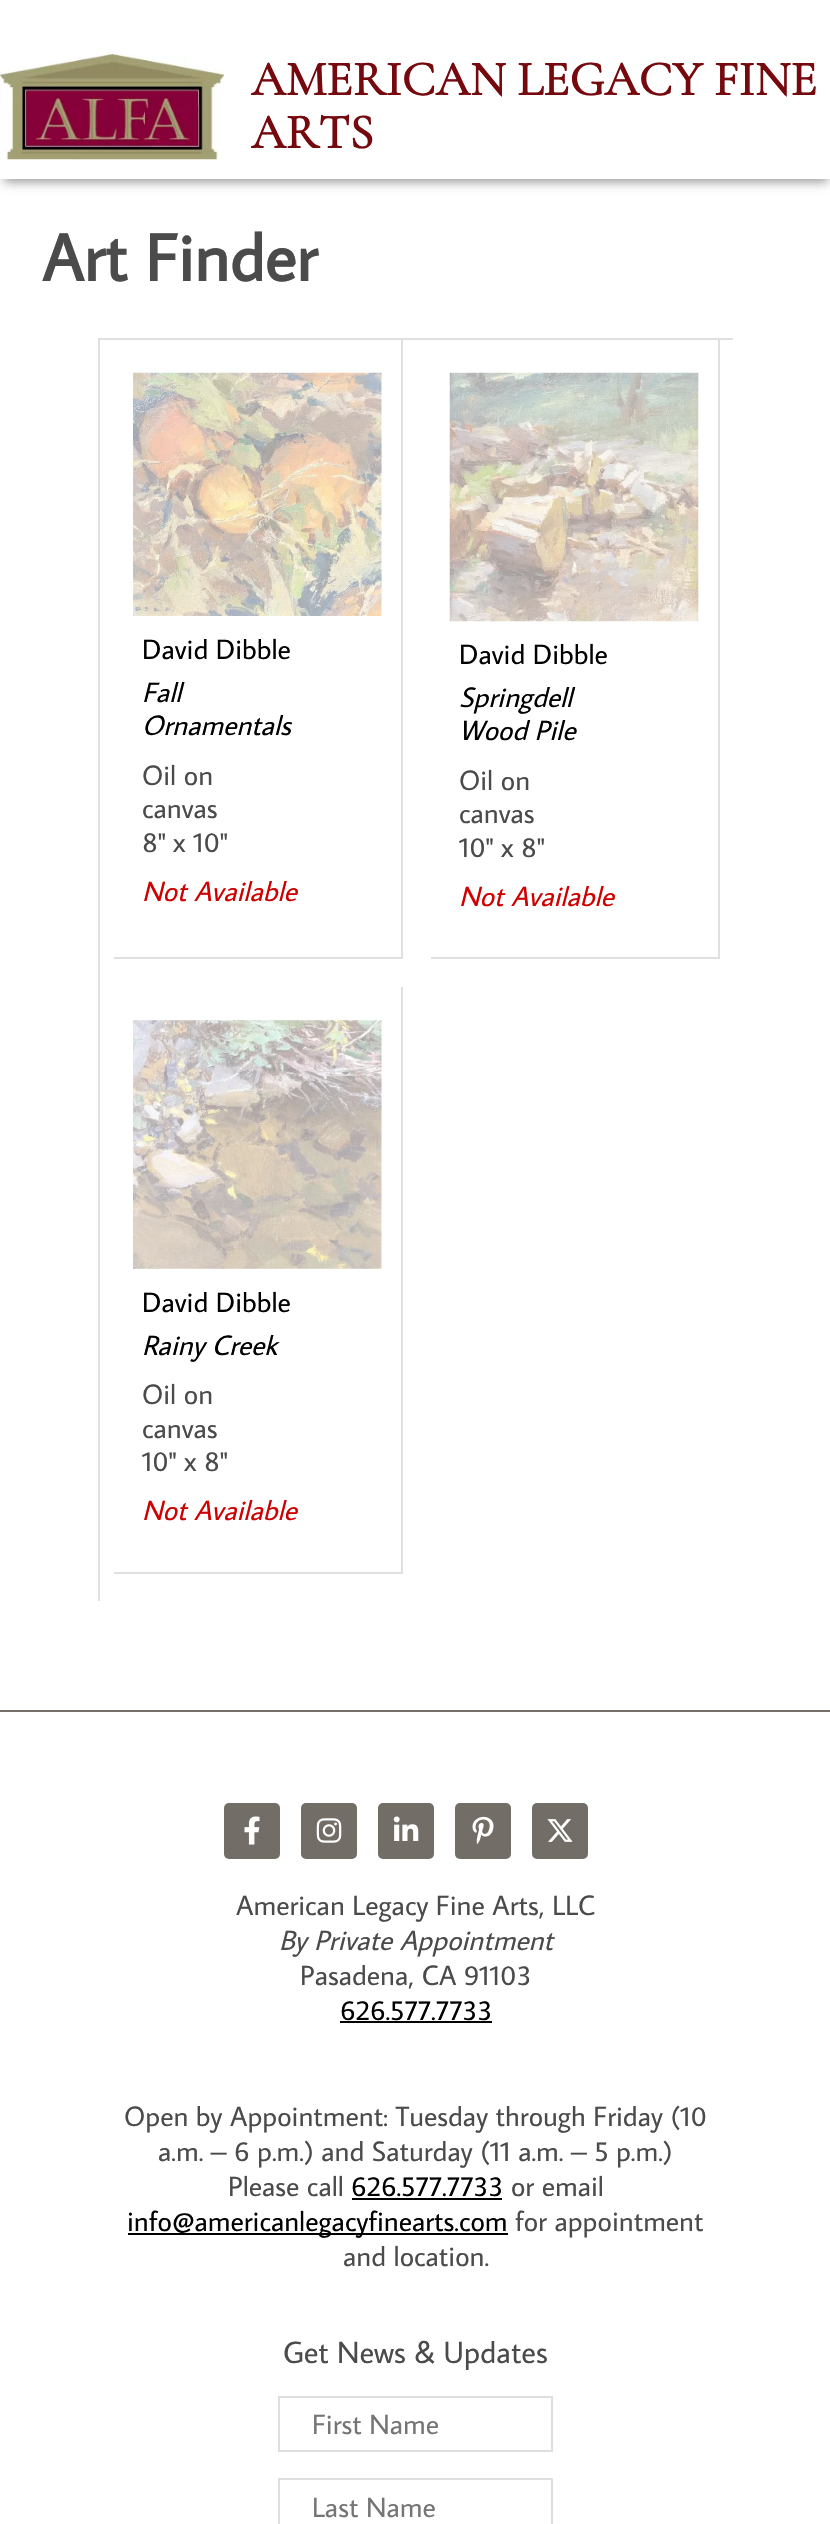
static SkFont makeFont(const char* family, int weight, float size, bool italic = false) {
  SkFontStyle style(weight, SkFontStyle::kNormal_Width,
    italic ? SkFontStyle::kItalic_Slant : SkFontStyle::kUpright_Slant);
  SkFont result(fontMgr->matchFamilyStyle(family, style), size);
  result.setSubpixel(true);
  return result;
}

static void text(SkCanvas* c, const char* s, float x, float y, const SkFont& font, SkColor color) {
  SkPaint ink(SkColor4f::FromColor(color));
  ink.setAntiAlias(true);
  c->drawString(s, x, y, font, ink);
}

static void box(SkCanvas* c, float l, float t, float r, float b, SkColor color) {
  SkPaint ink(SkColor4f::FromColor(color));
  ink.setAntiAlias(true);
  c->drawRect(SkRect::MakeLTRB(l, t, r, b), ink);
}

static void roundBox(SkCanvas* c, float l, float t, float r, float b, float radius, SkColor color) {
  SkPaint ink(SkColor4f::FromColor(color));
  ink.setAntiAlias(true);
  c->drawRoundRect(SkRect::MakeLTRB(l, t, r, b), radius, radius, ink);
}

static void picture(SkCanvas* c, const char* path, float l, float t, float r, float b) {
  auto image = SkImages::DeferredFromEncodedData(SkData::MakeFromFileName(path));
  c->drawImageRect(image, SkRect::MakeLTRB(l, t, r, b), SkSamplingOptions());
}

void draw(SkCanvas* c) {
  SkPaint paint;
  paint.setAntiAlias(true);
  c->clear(0xffffffff);
  paint.setColor(0x66000000);
  paint.setMaskFilter(SkMaskFilter::MakeBlur(kNormal_SkBlurStyle, 5));
  c->drawRect(SkRect::MakeLTRB(4, 11, 828, 182), paint);
  paint.setMaskFilter(nullptr);
  box(c, 0, 1, 830, 179, 0xffffffff);
  picture(c, "img_01.png", 0, 54, 224, 160);
  SkFont face1 = makeFont("Cormorant Garamond", 700, 49);
  text(c, "AMERICAN LEGACY FINE", 251, 95, face1, 0xff76090e);
  text(c, "ARTS", 251, 148, face1, 0xff76090e);
  SkFont face2 = makeFont("Average Sans", 700, 66.5f);
  text(c, "Art Finder", 42, 281, face2, 0xff4b4b4b);
  box(c, 98, 338, 733, 340, 0xffe0e0e0);
  box(c, 98, 338, 100, 1601, 0xffe0e0e0);
  box(c, 401, 340, 403, 959, 0xffe0e0e0);
  box(c, 114, 957, 403, 959, 0xffe0e0e0);
  picture(c, "img_02.png", 133, 372, 382, 616);
  SkFont face3 = makeFont("Average Sans", 400, 28);
  text(c, "David Dibble", 142, 659, face3, 0xff000000);
  SkFont face4 = makeFont("Average Sans", 400, 28, true);
  text(c, "Fall", 142, 702, face4, 0xff000000);
  text(c, "Ornamentals", 142, 735, face4, 0xff000000);
  text(c, "Oil on", 142, 785, face3, 0xff4b4b4b);
  text(c, "canvas", 142, 818, face3, 0xff4b4b4b);
  text(c, "8\" x 10\"", 142, 852, face3, 0xff4b4b4b);
  text(c, "Not Available", 142, 901, face4, 0xffcf0000);
  box(c, 718, 340, 720, 959, 0xffe0e0e0);
  box(c, 431, 957, 719, 959, 0xffe0e0e0);
  picture(c, "img_03.png", 449, 372, 699, 622);
  text(c, "David Dibble", 459, 664, face3, 0xff000000);
  text(c, "Springdell", 459, 707, face4, 0xff000000);
  text(c, "Wood Pile", 459, 740, face4, 0xff000000);
  text(c, "Oil on", 459, 790, face3, 0xff4b4b4b);
  text(c, "canvas", 459, 823, face3, 0xff4b4b4b);
  text(c, "10\" x 8\"", 459, 857, face3, 0xff4b4b4b);
  text(c, "Not Available", 459, 906, face4, 0xffcf0000);
  box(c, 401, 987, 403, 1573, 0xffe0e0e0);
  box(c, 114, 1572, 403, 1574, 0xffe0e0e0);
  picture(c, "img_04.png", 133, 1020, 382, 1269);
  text(c, "David Dibble", 142, 1312, face3, 0xff000000);
  text(c, "Rainy Creek", 142, 1355, face4, 0xff000000);
  text(c, "Oil on", 142, 1404, face3, 0xff4b4b4b);
  text(c, "canvas", 142, 1438, face3, 0xff4b4b4b);
  text(c, "10\" x 8\"", 142, 1471, face3, 0xff4b4b4b);
  text(c, "Not Available", 142, 1520, face4, 0xffcf0000);
  box(c, 0, 1710, 830, 1712, 0xff756f69);
  roundBox(c, 224, 1803, 280, 1859, 5, 0xff736d67);
  picture(c, "img_05.png", 244, 1816, 260, 1845);
  roundBox(c, 301, 1803, 357, 1859, 5, 0xff736d67);
  picture(c, "img_06.png", 316, 1818, 342, 1843);
  roundBox(c, 378, 1803, 434, 1859, 5, 0xff736d67);
  picture(c, "img_07.png", 393, 1816, 419, 1841);
  roundBox(c, 455, 1803, 511, 1859, 5, 0xff736d67);
  picture(c, "img_08.png", 472, 1816, 494, 1845);
  roundBox(c, 532, 1803, 588, 1859, 5, 0xff736d67);
  picture(c, "img_09.png", 547, 1819, 573, 1842);
  text(c, "American Legacy Fine Arts, LLC", 236, 1915, face3, 0xff4b4b4b);
  text(c, "By Private Appointment", 279, 1950, face4, 0xff4b4b4b);
  text(c, "Pasadena, CA 91103", 300, 1985, face3, 0xff4b4b4b);
  text(c, "626.577.7733", 340, 2020, face3, 0xff000000);
  box(c, 340, 2021, 492, 2023, 0xff000000);
  text(c, "Open by Appointment: Tuesday through Friday (10", 124, 2126, face3, 0xff4b4b4b);
  text(c, "a.m. – 6 p.m.) and Saturday (11 a.m. – 5 p.m.)", 158, 2161, face3, 0xff4b4b4b);
  text(c, "Please call", 228, 2196, face3, 0xff4b4b4b);
  text(c, "626.577.7733", 351, 2196, face3, 0xff000000);
  box(c, 352, 2198, 502, 2200, 0xff000000);
  text(c, "or email", 511, 2196, face3, 0xff4b4b4b);
  box(c, 128, 2233, 508, 2235, 0xff000000);
  text(c, "info@americanlegacyfinearts.com", 127, 2231, face3, 0xff000000);
  text(c, "for appointment", 515, 2231, face3, 0xff4b4b4b);
  text(c, "and location.", 343, 2266, face3, 0xff4b4b4b);
  SkFont face5 = makeFont("Average Sans", 400, 30.75f);
  text(c, "Get News & Updates", 283, 2363, face5, 0xff4b4b4b);
  paint.setStyle(SkPaint::kStroke_Style);
  paint.setStrokeWidth(2);
  paint.setColor(0xffdedede);
  c->drawRect(SkRect::MakeLTRB(279, 2397, 552, 2451), paint);
  text(c, "First Name", 312, 2434, face3, 0xff757575);
  c->drawRect(SkRect::MakeLTRB(279, 2479, 552, 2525), paint);
  text(c, "Last Name", 312, 2517, face3, 0xff757575);
}
